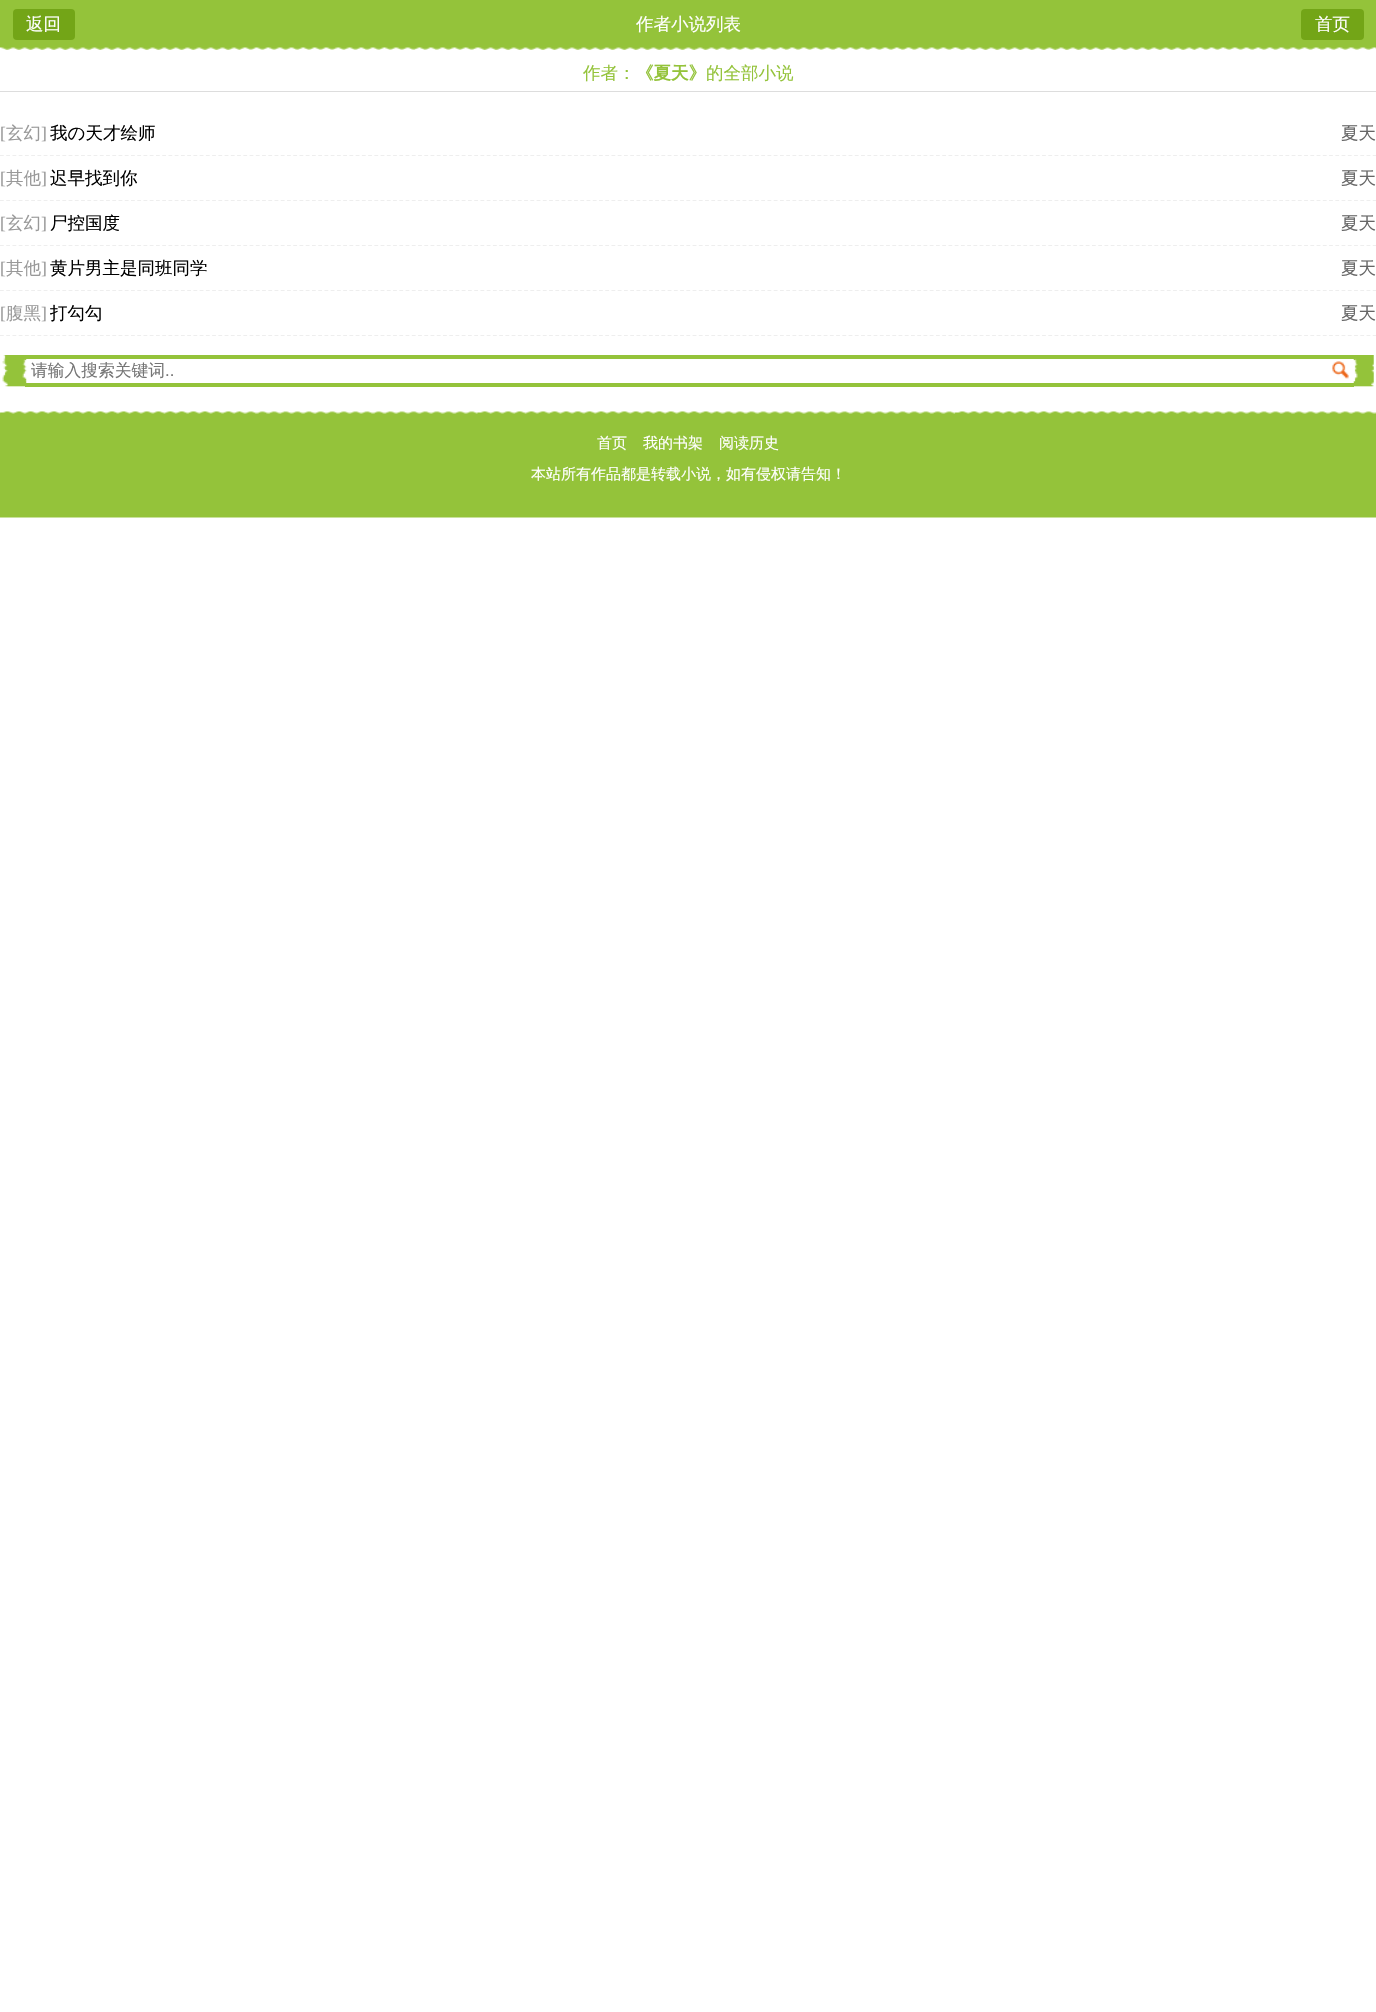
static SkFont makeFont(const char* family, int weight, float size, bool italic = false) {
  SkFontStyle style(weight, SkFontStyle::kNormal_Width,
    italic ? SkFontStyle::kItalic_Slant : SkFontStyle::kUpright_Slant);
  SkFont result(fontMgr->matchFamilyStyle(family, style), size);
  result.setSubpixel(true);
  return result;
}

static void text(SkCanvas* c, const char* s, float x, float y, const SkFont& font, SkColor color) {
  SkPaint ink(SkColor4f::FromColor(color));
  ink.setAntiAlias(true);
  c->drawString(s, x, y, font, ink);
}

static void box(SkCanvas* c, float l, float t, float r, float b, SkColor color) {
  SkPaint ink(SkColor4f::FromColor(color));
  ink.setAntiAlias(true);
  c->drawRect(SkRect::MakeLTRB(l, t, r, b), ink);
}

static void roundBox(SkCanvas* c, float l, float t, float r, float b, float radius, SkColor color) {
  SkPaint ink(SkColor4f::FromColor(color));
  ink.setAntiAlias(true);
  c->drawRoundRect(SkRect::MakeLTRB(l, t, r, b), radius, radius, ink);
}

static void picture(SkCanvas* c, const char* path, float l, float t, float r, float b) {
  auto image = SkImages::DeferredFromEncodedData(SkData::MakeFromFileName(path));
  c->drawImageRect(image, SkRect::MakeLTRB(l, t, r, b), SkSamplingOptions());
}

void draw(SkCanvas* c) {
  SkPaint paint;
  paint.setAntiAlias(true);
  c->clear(0xffffffff);
  picture(c, "img_01.png", 0, 0, 1376, 50);
  roundBox(c, 13, 9, 75, 40, 4, 0xff73a517);
  SkFont face1 = makeFont("WenQuanYi Zen Hei", 500, 17.5f);
  text(c, "返回", 26, 30, face1, 0xffffffff);
  text(c, "作者小说列表", 636, 30, face1, 0xffffffff);
  roundBox(c, 1301, 9, 1364, 40, 4, 0xff73a517);
  text(c, "首页", 1315, 30, face1, 0xffffffff);
  box(c, 0, 91, 1376, 92, 0xffdddddd);
  text(c, "作者：", 583, 79, face1, 0xff94c33a);
  SkFont face2 = makeFont("WenQuanYi Zen Hei", 700, 17.5f);
  text(c, "《夏天》", 636, 79, face2, 0xff94c33a);
  text(c, "的全部小说", 706, 79, face1, 0xff94c33a);
  paint.setStyle(SkPaint::kStroke_Style);
  paint.setStrokeWidth(1.2f);
  paint.setColor(0xffeeeeee);
  paint.setPathEffect(SkDashPathEffect::Make({{3.75f, 2.49f}}, 0));
  c->drawPath(SkPathBuilder().moveTo(0, 155.5f).lineTo(1376, 155.5f).detach(), paint);
  paint.setPathEffect(nullptr);
  SkFont face3 = makeFont("Liberation Serif", 400, 17.5f);
  text(c, "[", 0, 139, face3, 0xff999999);
  text(c, "玄幻", 6, 139, face1, 0xff999999);
  text(c, "]", 41, 139, face3, 0xff999999);
  text(c, "我の天才绘师", 50, 139, face1, 0xff000000);
  text(c, "夏天", 1341, 139, face1, 0xff666666);
  paint.setPathEffect(SkDashPathEffect::Make({{3.75f, 2.49f}}, 0));
  c->drawPath(SkPathBuilder().moveTo(0, 200.5f).lineTo(1376, 200.5f).detach(), paint);
  paint.setPathEffect(nullptr);
  text(c, "[", 0, 184, face3, 0xff999999);
  text(c, "其他", 6, 184, face1, 0xff999999);
  text(c, "]", 41, 184, face3, 0xff999999);
  text(c, "迟早找到你", 50, 184, face1, 0xff000000);
  text(c, "夏天", 1341, 184, face1, 0xff666666);
  paint.setPathEffect(SkDashPathEffect::Make({{3.75f, 2.49f}}, 0));
  c->drawPath(SkPathBuilder().moveTo(0, 245.5f).lineTo(1376, 245.5f).detach(), paint);
  paint.setPathEffect(nullptr);
  text(c, "[", 0, 229, face3, 0xff999999);
  text(c, "玄幻", 6, 229, face1, 0xff999999);
  text(c, "]", 41, 229, face3, 0xff999999);
  text(c, "尸控国度", 50, 229, face1, 0xff000000);
  text(c, "夏天", 1341, 229, face1, 0xff666666);
  paint.setPathEffect(SkDashPathEffect::Make({{3.75f, 2.49f}}, 0));
  c->drawPath(SkPathBuilder().moveTo(0, 290.5f).lineTo(1376, 290.5f).detach(), paint);
  paint.setPathEffect(nullptr);
  text(c, "[", 0, 274, face3, 0xff999999);
  text(c, "其他", 6, 274, face1, 0xff999999);
  text(c, "]", 41, 274, face3, 0xff999999);
  text(c, "黄片男主是同班同学", 50, 274, face1, 0xff000000);
  text(c, "夏天", 1341, 274, face1, 0xff666666);
  paint.setPathEffect(SkDashPathEffect::Make({{3.75f, 2.49f}}, 0));
  c->drawPath(SkPathBuilder().moveTo(0, 335.5f).lineTo(1376, 335.5f).detach(), paint);
  paint.setPathEffect(nullptr);
  text(c, "[", 0, 319, face3, 0xff999999);
  text(c, "腹黑", 6, 319, face1, 0xff999999);
  text(c, "]", 41, 319, face3, 0xff999999);
  text(c, "打勾勾", 50, 319, face1, 0xff000000);
  text(c, "夏天", 1341, 319, face1, 0xff666666);
  picture(c, "img_02.png", 2, 355, 27, 387);
  box(c, 25, 355, 1354, 359, 0xff94c33a);
  box(c, 25, 383, 1354, 387, 0xff94c33a);
  SkFont face4 = makeFont("WenQuanYi Zen Hei", 500, 16.75f);
  text(c, "请输入搜索关键词", 31, 376, face4, 0xff757575);
  SkFont face5 = makeFont("Liberation Sans", 400, 16.75f);
  text(c, "..", 165, 376, face5, 0xff757575);
  picture(c, "img_03.png", 1332, 361, 1349, 379);
  picture(c, "img_04.png", 1353, 355, 1374, 387);
  picture(c, "img_05.png", 0, 411, 1376, 518);
  SkFont face6 = makeFont("WenQuanYi Zen Hei", 500, 15);
  text(c, "首页", 597, 448, face6, 0xffffffff);
  text(c, "我的书架", 643, 448, face6, 0xffffffff);
  text(c, "阅读历史", 719, 448, face6, 0xffffffff);
  text(c, "本站所有作品都是转载小说，如有侵权请告知！", 531, 479, face6, 0xffffffff);
}
